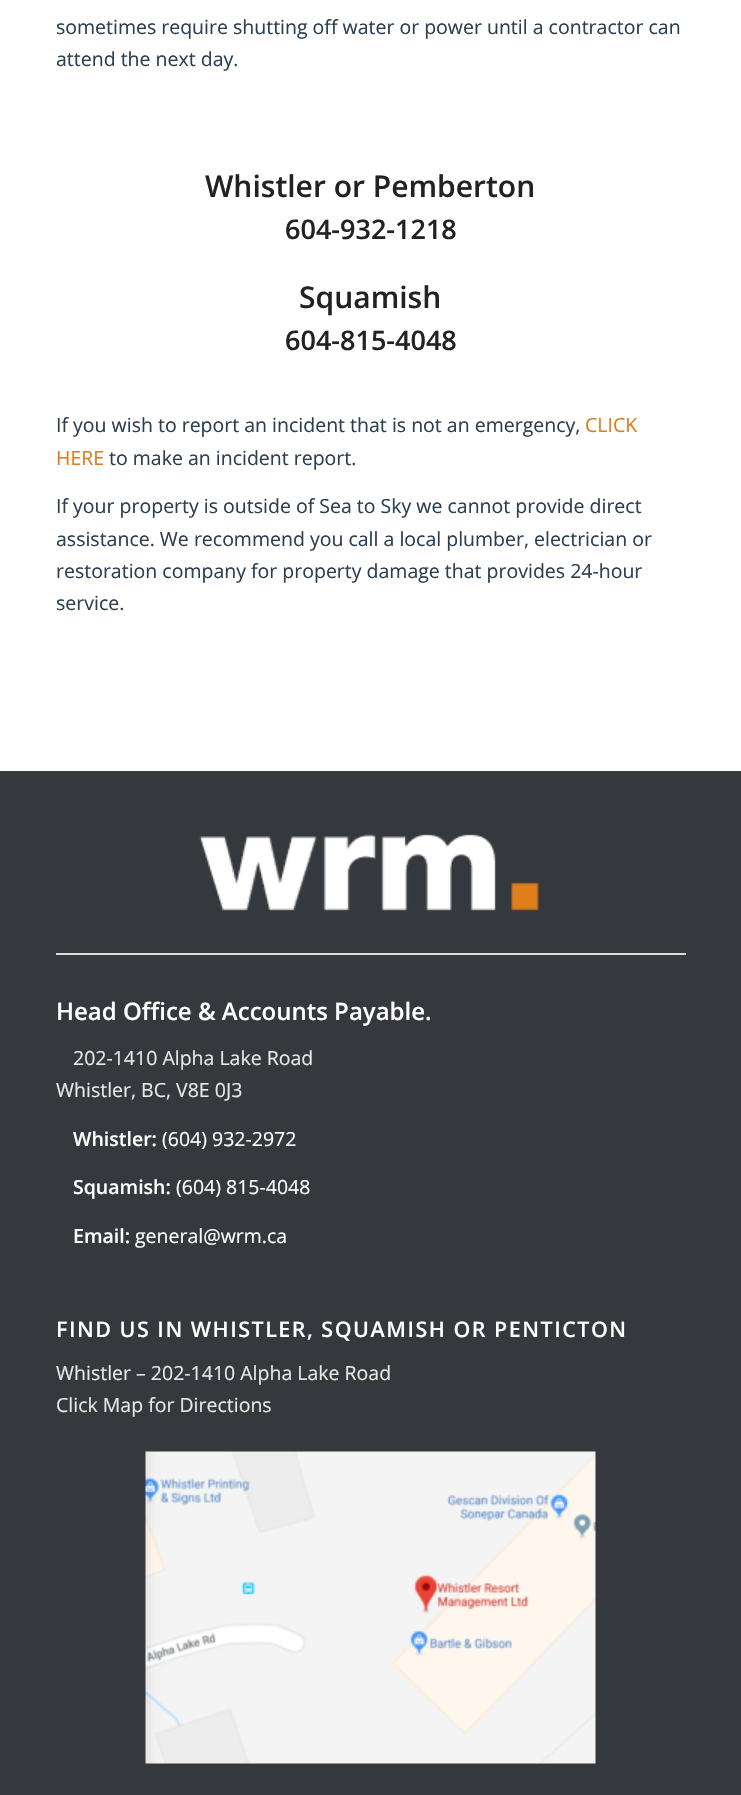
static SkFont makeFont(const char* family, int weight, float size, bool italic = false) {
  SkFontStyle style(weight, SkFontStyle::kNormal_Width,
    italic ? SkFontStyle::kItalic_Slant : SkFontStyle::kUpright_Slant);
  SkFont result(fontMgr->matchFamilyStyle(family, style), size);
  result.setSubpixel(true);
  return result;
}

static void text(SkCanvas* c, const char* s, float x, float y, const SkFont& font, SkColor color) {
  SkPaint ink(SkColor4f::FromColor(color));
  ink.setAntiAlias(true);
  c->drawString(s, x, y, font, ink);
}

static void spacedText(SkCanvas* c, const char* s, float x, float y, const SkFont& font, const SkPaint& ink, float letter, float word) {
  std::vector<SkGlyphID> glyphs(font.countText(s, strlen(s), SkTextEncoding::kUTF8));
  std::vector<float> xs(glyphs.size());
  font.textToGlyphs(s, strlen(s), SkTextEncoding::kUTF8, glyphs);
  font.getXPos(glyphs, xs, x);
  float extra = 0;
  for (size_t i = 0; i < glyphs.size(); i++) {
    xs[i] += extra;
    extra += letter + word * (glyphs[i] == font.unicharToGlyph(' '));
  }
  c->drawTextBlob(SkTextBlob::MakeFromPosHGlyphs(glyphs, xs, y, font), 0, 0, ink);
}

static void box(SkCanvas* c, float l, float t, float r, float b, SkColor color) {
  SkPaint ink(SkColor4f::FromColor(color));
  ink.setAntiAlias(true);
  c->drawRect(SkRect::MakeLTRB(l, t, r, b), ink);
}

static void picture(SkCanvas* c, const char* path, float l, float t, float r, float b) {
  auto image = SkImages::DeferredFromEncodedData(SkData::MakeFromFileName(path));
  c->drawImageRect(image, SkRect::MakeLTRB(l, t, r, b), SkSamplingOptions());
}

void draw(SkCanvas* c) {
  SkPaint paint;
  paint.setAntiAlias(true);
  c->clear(0xffffffff);
  SkFont face1 = makeFont("Open Sans", 400, 19.5f);
  text(c, "sometimes require shutting off water or power until a contractor can", 56, 34, face1, 0xff2c3e50);
  text(c, "attend the next day.", 56, 66, face1, 0xff2c3e50);
  SkFont face2 = makeFont("Open Sans", 600, 30);
  text(c, "Whistler or Pemberton", 205, 197, face2, 0xff222222);
  SkFont face3 = makeFont("Open Sans", 600, 27);
  text(c, "604-932-1218", 285, 239, face3, 0xff222222);
  text(c, "Squamish", 299, 308, face2, 0xff222222);
  text(c, "604-815-4048", 285, 350, face3, 0xff222222);
  text(c, "If you wish to report an incident that is not an emergency,", 56, 432, face1, 0xff2c3e50);
  text(c, "CLICK", 585, 432, face1, 0xffdf7d1c);
  text(c, "HERE", 56, 465, face1, 0xffdf7d1c);
  text(c, "to make an incident report.", 109, 465, face1, 0xff2c3e50);
  text(c, "If your property is outside of Sea to Sky we cannot provide direct", 56, 513, face1, 0xff2c3e50);
  text(c, "assistance. We recommend you call a local plumber, electrician or", 56, 546, face1, 0xff2c3e50);
  text(c, "restoration company for property damage that provides 24-hour", 56, 578, face1, 0xff2c3e50);
  text(c, "service.", 56, 610, face1, 0xff2c3e50);
  box(c, 0, 771, 741, 1795, 0xff35383c);
  picture(c, "img_01.png", 199, 834, 539, 911);
  box(c, 56, 953, 686, 955, 0xffdddddd);
  SkFont face4 = makeFont("Open Sans", 600, 24);
  text(c, "Head Office & Accounts Payable.", 56, 1020, face4, 0xffffffff);
  text(c, "202-1410 Alpha Lake Road", 73, 1065, face1, 0xffe8e8e8);
  text(c, "Whistler, BC, V8E 0J3", 56, 1097, face1, 0xffe8e8e8);
  SkFont face5 = makeFont("Open Sans", 600, 19.5f);
  text(c, "Whistler:", 73, 1146, face5, 0xffffffff);
  text(c, "(604) 932-2972", 162, 1146, face1, 0xffffffff);
  text(c, "Squamish:", 73, 1194, face5, 0xffffffff);
  text(c, "(604) 815-4048", 176, 1194, face1, 0xffffffff);
  text(c, "Email:", 73, 1243, face5, 0xffffffff);
  text(c, "general@wrm.ca", 135, 1243, face1, 0xffffffff);
  SkFont face6 = makeFont("Open Sans", 600, 21.45f);
  paint.setColor(0xffffffff);
  spacedText(c, "FIND US IN WHISTLER, SQUAMISH OR PENTICTON", 56, 1337, face6, paint, 1.5f, 0);
  text(c, "Whistler – 202-1410 Alpha Lake Road", 56, 1380, face1, 0xffe8e8e8);
  text(c, "Click Map for Directions", 56, 1412, face1, 0xffe8e8e8);
  picture(c, "img_02.png", 145, 1451, 596, 1764);
}
